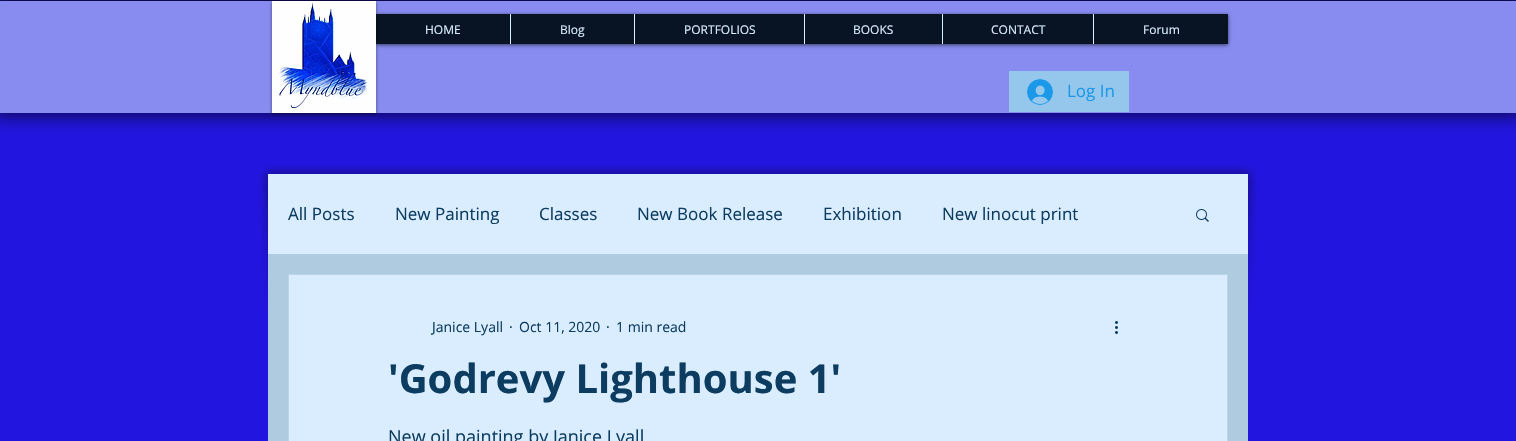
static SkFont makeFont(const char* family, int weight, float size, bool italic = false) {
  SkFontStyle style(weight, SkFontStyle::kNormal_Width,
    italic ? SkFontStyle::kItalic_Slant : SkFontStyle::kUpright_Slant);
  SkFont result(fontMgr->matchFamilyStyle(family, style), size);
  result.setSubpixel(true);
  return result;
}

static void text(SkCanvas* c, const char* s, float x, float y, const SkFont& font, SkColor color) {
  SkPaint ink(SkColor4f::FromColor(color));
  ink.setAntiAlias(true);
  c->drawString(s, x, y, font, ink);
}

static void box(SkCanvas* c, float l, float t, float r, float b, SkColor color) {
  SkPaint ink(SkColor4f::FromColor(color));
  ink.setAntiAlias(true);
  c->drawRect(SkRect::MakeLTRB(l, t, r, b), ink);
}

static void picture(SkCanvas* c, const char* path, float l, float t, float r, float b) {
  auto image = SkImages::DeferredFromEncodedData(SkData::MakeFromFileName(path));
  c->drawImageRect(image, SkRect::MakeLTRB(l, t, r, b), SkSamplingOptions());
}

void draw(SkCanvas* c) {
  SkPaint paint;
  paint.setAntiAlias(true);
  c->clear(0xff2315e0);
  paint.setColor(0xb3000000);
  paint.setMaskFilter(SkMaskFilter::MakeBlur(kNormal_SkBlurStyle, 9));
  c->drawRect(SkRect::MakeLTRB(-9, -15, 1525, 115), paint);
  paint.setMaskFilter(nullptr);
  box(c, 0, 1, 1516, 113, 0xff888cf1);
  paint.setColor(0x99000000);
  paint.setMaskFilter(SkMaskFilter::MakeBlur(kNormal_SkBlurStyle, 2));
  c->drawRect(SkRect::MakeLTRB(376, 15, 1228, 45), paint);
  paint.setMaskFilter(nullptr);
  box(c, 376, 14, 1228, 44, 0xff081423);
  paint.setColor(0x80000000);
  paint.setMaskFilter(SkMaskFilter::MakeBlur(kNormal_SkBlurStyle, 1.5f));
  c->drawRect(SkRect::MakeLTRB(272, 2, 376, 114), paint);
  paint.setMaskFilter(nullptr);
  picture(c, "img_01.png", 272, 1, 376, 113);
  SkFont face1 = makeFont("Open Sans", 400, 12);
  text(c, "HOME", 425, 34, face1, 0xffdaedff);
  box(c, 510, 14, 511, 44, 0xffdaedff);
  text(c, "Blog", 560, 34, face1, 0xffdaedff);
  box(c, 634, 14, 635, 44, 0xffdaedff);
  text(c, "PORTFOLIOS", 684, 34, face1, 0xffdaedff);
  box(c, 804, 14, 805, 44, 0xffdaedff);
  text(c, "BOOKS", 853, 34, face1, 0xffdaedff);
  box(c, 942, 14, 943, 44, 0xffdaedff);
  text(c, "CONTACT", 991, 34, face1, 0xffdaedff);
  box(c, 1093, 14, 1094, 44, 0xffdaedff);
  text(c, "Forum", 1143, 34, face1, 0xffdaedff);
  box(c, 1009, 71, 1129, 112, 0xff95c6ec);
  picture(c, "img_02.png", 1027, 79, 1053, 105);
  SkFont face2 = makeFont("Open Sans", 400, 17);
  text(c, "Log In", 1067, 97, face2, 0xff1b99e8);
  picture(c, "img_03.png", 258, 164, 303, 312);
  picture(c, "img_04.png", 303, 164, 1213, 174);
  picture(c, "img_05.png", 1213, 164, 1258, 312);
  box(c, 268, 254, 1248, 441, 0xffafcbe0);
  box(c, 268, 174, 1248, 254, 0xffdaedff);
  text(c, "All Posts", 288, 220, face2, 0xff0c3c60);
  text(c, "New Painting", 395, 220, face2, 0xff0c3c60);
  text(c, "Classes", 539, 220, face2, 0xff0c3c60);
  text(c, "New Book Release", 637, 220, face2, 0xff0c3c60);
  text(c, "Exhibition", 823, 220, face2, 0xff0c3c60);
  text(c, "New linocut print", 942, 220, face2, 0xff0c3c60);
  picture(c, "img_06.png", 1196, 209, 1209, 222);
  paint.setColor(0xffdaedff);
  c->drawRect(SkRect::MakeLTRB(288.5f, 274.5f, 1227.5f, 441.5f), paint);
  paint.setStyle(SkPaint::kStroke_Style);
  paint.setStrokeWidth(1);
  paint.setColor(0xffbad4e8);
  c->drawRect(SkRect::MakeLTRB(288.5f, 274.5f, 1227.5f, 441.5f), paint);
  SkFont face3 = makeFont("Open Sans", 400, 14);
  text(c, "Janice Lyall", 432, 332, face3, 0xff0c3c60);
  text(c, "·", 509, 332, face3, 0xff0c3c60);
  text(c, "Oct 11, 2020", 519, 332, face3, 0xff0c3c60);
  text(c, "·", 606, 332, face3, 0xff0c3c60);
  text(c, "1 min read", 616, 332, face3, 0xff0c3c60);
  picture(c, "img_07.png", 1115, 321, 1118, 334);
  SkFont face4 = makeFont("Open Sans", 700, 40);
  text(c, "'Godrevy Lighthouse 1'", 388, 393, face4, 0xff0c3c60);
  SkFont face5 = makeFont("Open Sans", 400, 18);
  text(c, "New oil painting by Janice Lyall", 388, 443, face5, 0xff0c3c60);
}
